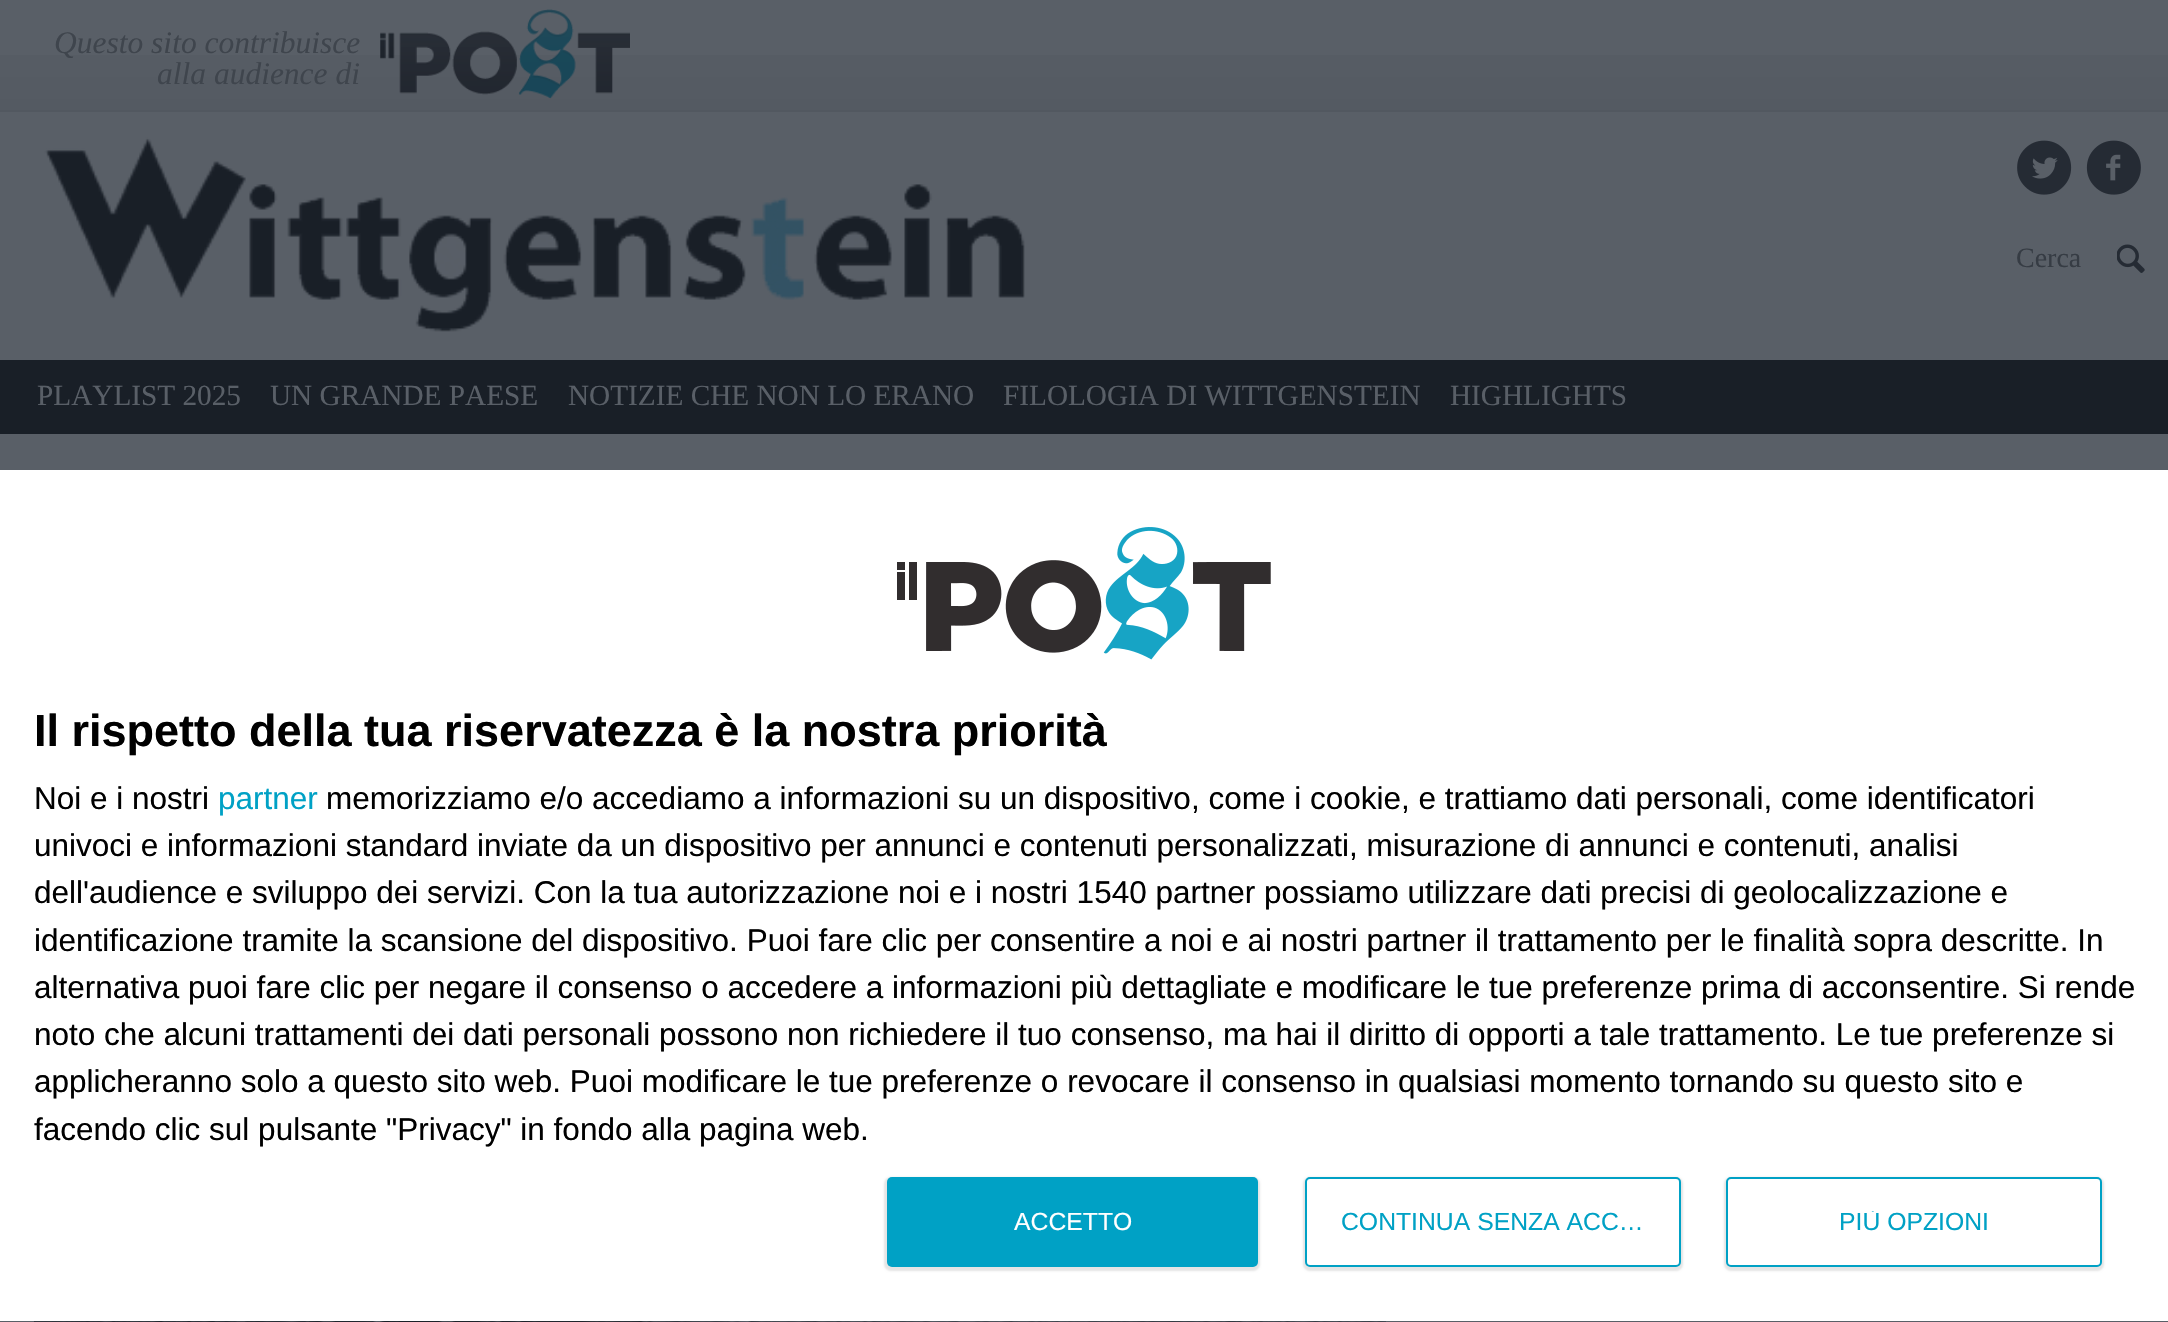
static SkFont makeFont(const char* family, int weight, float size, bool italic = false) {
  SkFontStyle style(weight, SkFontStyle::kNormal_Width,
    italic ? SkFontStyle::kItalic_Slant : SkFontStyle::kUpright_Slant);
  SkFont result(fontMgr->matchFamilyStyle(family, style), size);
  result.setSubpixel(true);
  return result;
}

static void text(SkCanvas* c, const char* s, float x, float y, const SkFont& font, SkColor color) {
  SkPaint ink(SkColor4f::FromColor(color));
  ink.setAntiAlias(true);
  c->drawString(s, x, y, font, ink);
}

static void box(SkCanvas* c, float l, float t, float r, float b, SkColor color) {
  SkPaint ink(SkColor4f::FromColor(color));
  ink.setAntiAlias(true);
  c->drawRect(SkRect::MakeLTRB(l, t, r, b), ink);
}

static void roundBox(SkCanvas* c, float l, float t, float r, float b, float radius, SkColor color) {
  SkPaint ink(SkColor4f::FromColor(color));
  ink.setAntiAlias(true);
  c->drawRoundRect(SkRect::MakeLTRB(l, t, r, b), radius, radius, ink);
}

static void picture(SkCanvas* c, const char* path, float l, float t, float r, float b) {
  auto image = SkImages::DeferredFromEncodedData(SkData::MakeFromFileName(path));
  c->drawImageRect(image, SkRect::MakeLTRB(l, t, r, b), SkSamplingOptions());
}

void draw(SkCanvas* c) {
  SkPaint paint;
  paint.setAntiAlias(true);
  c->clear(0xff595f67);
  {
    const SkColor colors[] = {0xff595f67, 0xff545a62};
    const float stops[] = {0, 1};
    const SkPoint ends[] = {{1085, 0}, {1085, 110}};
    paint.setShader(SkGradientShader::MakeLinear(ends, colors, stops, 2, SkTileMode::kClamp));
    paint.setAlpha(255);
  }
  c->drawRect(SkRect::MakeLTRB(0, 55, 2168, 110), paint);
  box(c, 0, 110, 2168, 112, 0xff525860);
  SkFont face1 = makeFont("Liberation Serif", 400, 31.5f, true);
  text(c, "Questo sito contribuisce", 54, 53, face1, 0xff3f454d);
  text(c, "alla audience di", 157, 84, face1, 0xff3f454d);
  picture(c, "img_01.png", 380, 9, 630, 99);
  picture(c, "img_02.png", 44, 137, 1025, 332);
  picture(c, "img_03.png", 2017, 140, 2072, 195);
  picture(c, "img_04.png", 2086, 140, 2141, 195);
  SkFont face2 = makeFont("Liberation Serif", 400, 28);
  text(c, "Cerca", 2016, 267, face2, 0xff363c44);
  picture(c, "img_05.png", 2117, 244, 2145, 273);
  box(c, 0, 360, 2168, 434, 0xff191f27);
  SkFont face3 = makeFont("Liberation Serif", 400, 29.25f);
  text(c, "PLAYLIST 2025", 37, 405, face3, 0xff595f67);
  text(c, "UN GRANDE PAESE", 270, 405, face3, 0xff595f67);
  text(c, "NOTIZIE CHE NON LO ERANO", 568, 405, face3, 0xff595f67);
  text(c, "FILOLOGIA DI WITTGENSTEIN", 1003, 405, face3, 0xff595f67);
  text(c, "HIGHLIGHTS", 1450, 405, face3, 0xff595f67);
  picture(c, "img_06.png", 33, 1321, 1386, 1322);
  box(c, 0, 470, 2168, 1321, 0xffffffff);
  picture(c, "img_07.png", 897, 527, 1271, 660);
  SkFont face4 = makeFont("Liberation Sans", 700, 45);
  text(c, "Il rispetto della tua riservatezza è la nostra priorità", 34, 746, face4, 0xff000000);
  SkFont face5 = makeFont("Liberation Sans", 400, 31.5f);
  text(c, "Noi e i nostri", 34, 809, face5, 0xff000000);
  text(c, "partner", 218, 809, face5, 0xff00a1c5);
  text(c, "memorizziamo e/o accediamo a informazioni su un dispositivo, come i cookie, e trattiamo dati personali, come identificatori", 326, 809, face5, 0xff000000);
  text(c, "univoci e informazioni standard inviate da un dispositivo per annunci e contenuti personalizzati, misurazione di annunci e contenuti, analisi", 34, 856, face5, 0xff000000);
  text(c, "dell'audience e sviluppo dei servizi. Con la tua autorizzazione noi e i nostri 1540 partner possiamo utilizzare dati precisi di geolocalizzazione e", 34, 903, face5, 0xff000000);
  text(c, "identificazione tramite la scansione del dispositivo. Puoi fare clic per consentire a noi e ai nostri partner il trattamento per le finalità sopra descritte. In", 34, 951, face5, 0xff000000);
  text(c, "alternativa puoi fare clic per negare il consenso o accedere a informazioni più dettagliate e modificare le tue preferenze prima di acconsentire. Si rende", 34, 998, face5, 0xff000000);
  text(c, "noto che alcuni trattamenti dei dati personali possono non richiedere il tuo consenso, ma hai il diritto di opporti a tale trattamento. Le tue preferenze si", 34, 1045, face5, 0xff000000);
  text(c, "applicheranno solo a questo sito web. Puoi modificare le tue preferenze o revocare il consenso in qualsiasi momento tornando su questo sito e", 34, 1092, face5, 0xff000000);
  text(c, "facendo clic sul pulsante \"Privacy\" in fondo alla pagina web.", 34, 1140, face5, 0xff000000);
  paint.setShader(nullptr);
  paint.setColor(0x1a000000);
  paint.setMaskFilter(SkMaskFilter::MakeBlur(kNormal_SkBlurStyle, 1));
  c->drawRoundRect(SkRect::MakeLTRB(884, 1177, 1260, 1271), 7, 7, paint);
  paint.setMaskFilter(nullptr);
  roundBox(c, 887, 1177, 1258, 1267, 5, 0xff00a1c5);
  SkFont face6 = makeFont("Liberation Sans", 400, 24.75f);
  text(c, "ACCETTO", 1014, 1230, face6, 0xffffffff);
  paint.setMaskFilter(SkMaskFilter::MakeBlur(kNormal_SkBlurStyle, 1));
  c->drawRoundRect(SkRect::MakeLTRB(1303, 1177, 1683, 1271), 7, 7, paint);
  paint.setMaskFilter(nullptr);
  paint.setColor(0xffffffff);
  c->drawRoundRect(SkRect::MakeLTRB(1306, 1178, 1680, 1266), 4, 4, paint);
  paint.setStyle(SkPaint::kStroke_Style);
  paint.setStrokeWidth(2);
  paint.setColor(0xff00a1c5);
  c->drawRoundRect(SkRect::MakeLTRB(1306, 1178, 1680, 1266), 4, 4, paint);
  text(c, "CONTINUA SENZA ACC…", 1341, 1230, face6, 0xff00a1c5);
  paint.setStyle(SkPaint::kFill_Style);
  paint.setColor(0x1a000000);
  paint.setMaskFilter(SkMaskFilter::MakeBlur(kNormal_SkBlurStyle, 1));
  c->drawRoundRect(SkRect::MakeLTRB(1724, 1177, 2104, 1271), 7, 7, paint);
  paint.setMaskFilter(nullptr);
  paint.setColor(0xffffffff);
  c->drawRoundRect(SkRect::MakeLTRB(1727, 1178, 2101, 1266), 4, 4, paint);
  paint.setStyle(SkPaint::kStroke_Style);
  paint.setColor(0xff00a1c5);
  c->drawRoundRect(SkRect::MakeLTRB(1727, 1178, 2101, 1266), 4, 4, paint);
  c->save();
  c->clipRect(SkRect::MakeLTRB(1838, 1211, 1989, 1235));
  text(c, "PIÙ OPZIONI", 1839, 1230, face6, 0xff00a1c5);
  c->restore();
}
